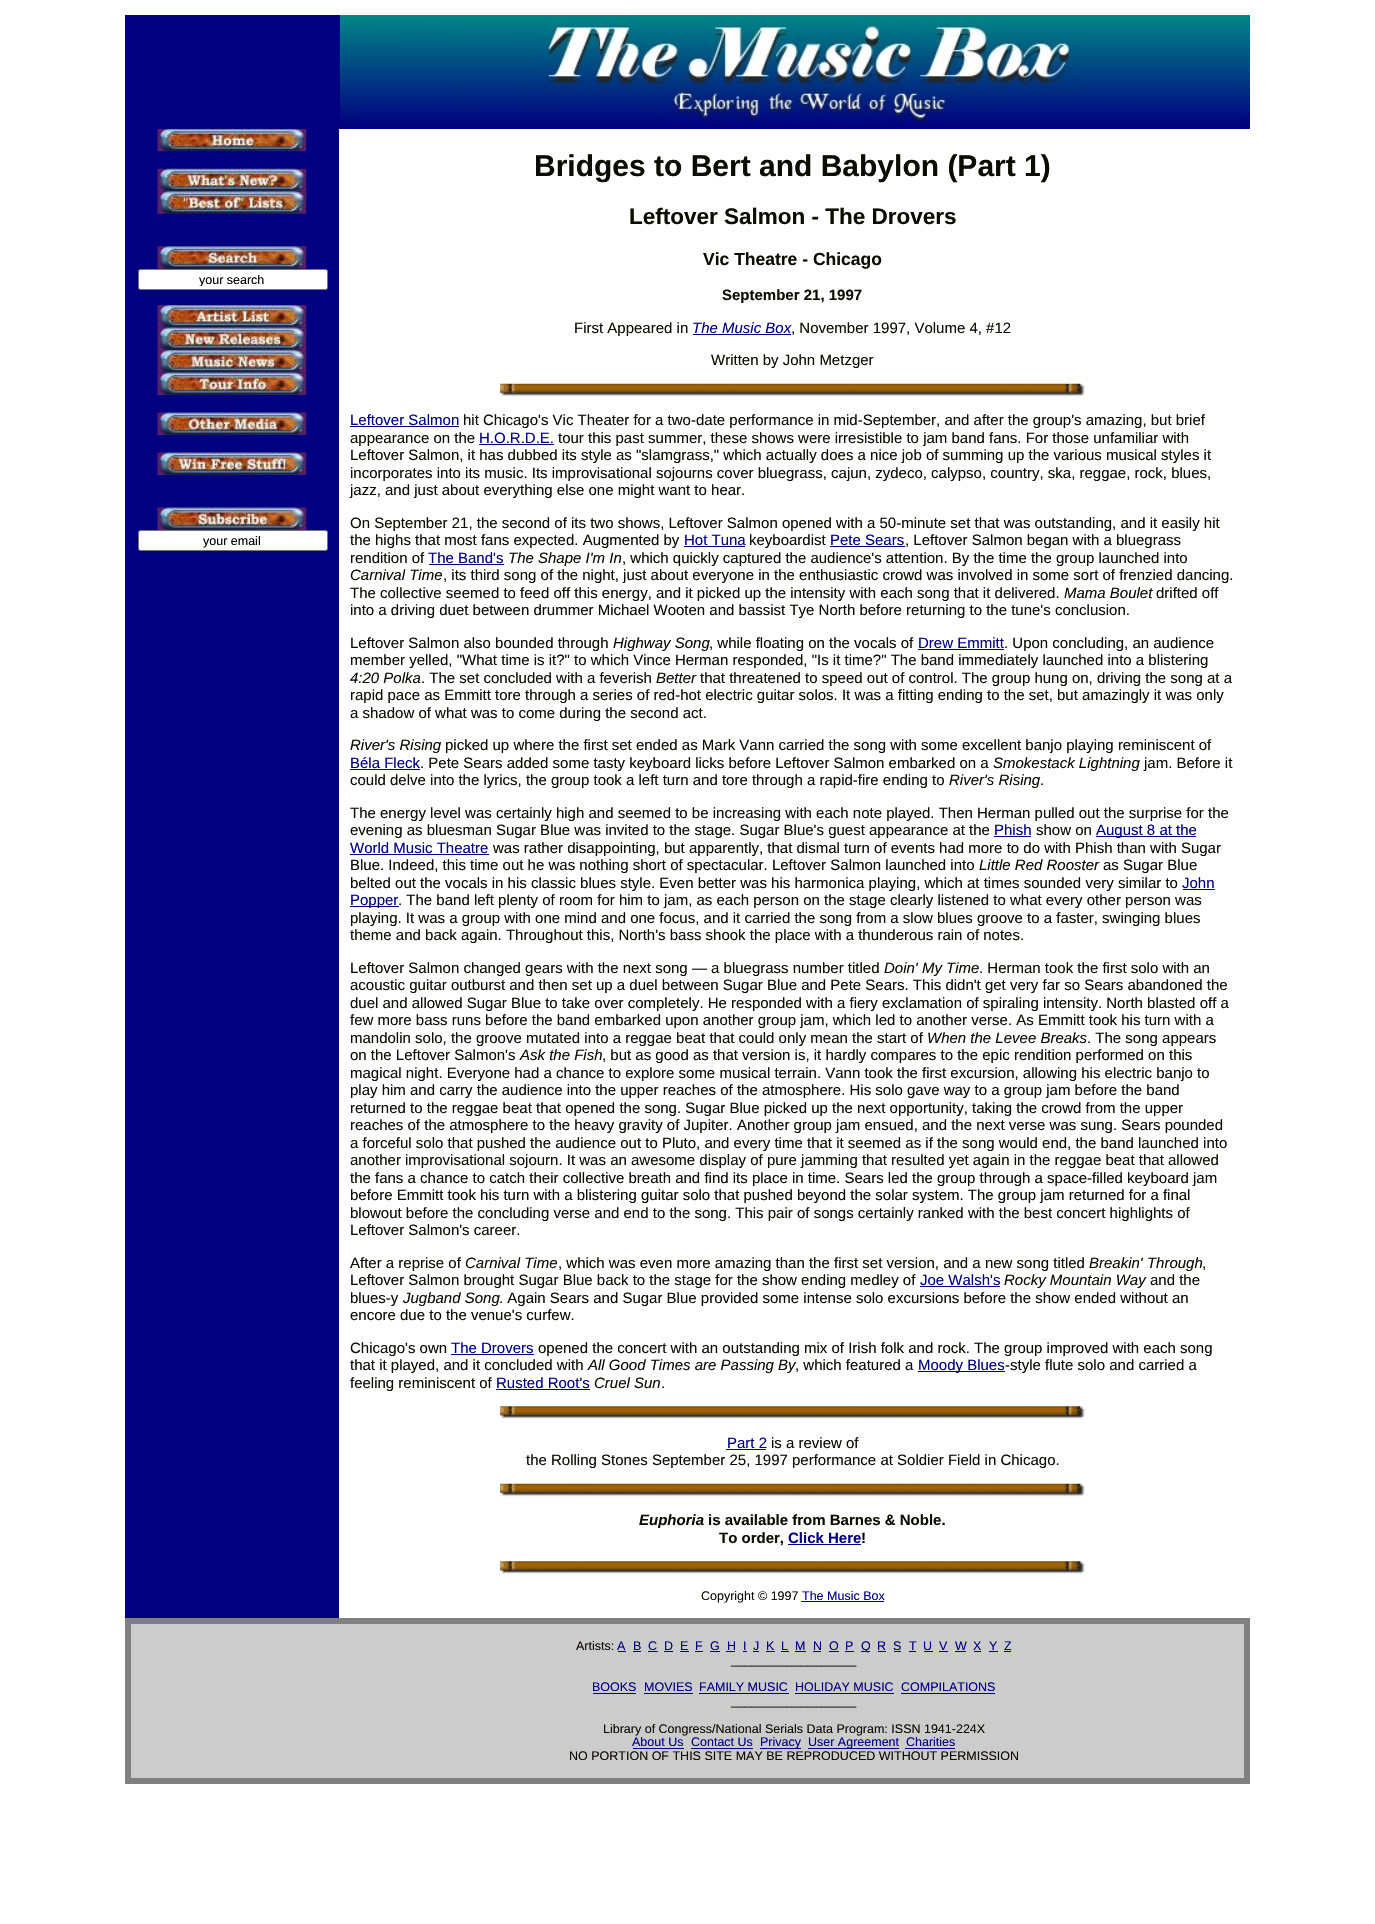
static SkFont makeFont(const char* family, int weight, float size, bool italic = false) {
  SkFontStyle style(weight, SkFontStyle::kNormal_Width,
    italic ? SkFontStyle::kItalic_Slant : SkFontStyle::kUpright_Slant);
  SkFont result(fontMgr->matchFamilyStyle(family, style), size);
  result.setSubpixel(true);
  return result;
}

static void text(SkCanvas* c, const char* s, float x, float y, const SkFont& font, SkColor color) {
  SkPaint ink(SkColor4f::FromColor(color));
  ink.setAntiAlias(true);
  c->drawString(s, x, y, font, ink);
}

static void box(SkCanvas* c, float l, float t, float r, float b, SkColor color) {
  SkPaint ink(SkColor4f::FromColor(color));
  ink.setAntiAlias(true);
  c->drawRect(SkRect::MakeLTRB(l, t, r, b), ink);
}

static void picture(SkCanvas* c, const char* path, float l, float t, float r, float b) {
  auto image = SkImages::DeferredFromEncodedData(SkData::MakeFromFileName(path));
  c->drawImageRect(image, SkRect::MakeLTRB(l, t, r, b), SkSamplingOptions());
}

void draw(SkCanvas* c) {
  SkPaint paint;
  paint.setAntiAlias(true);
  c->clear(0xffffffff);
  box(c, 125, 15, 1250, 129, 0xff000080);
  picture(c, "img_01.png", 340, 15, 1250, 127);
  box(c, 125, 129, 339, 1618, 0xff000080);
  picture(c, "img_02.png", 157, 128, 307, 152);
  picture(c, "img_03.png", 157, 168, 307, 192);
  picture(c, "img_04.png", 157, 191, 307, 214);
  picture(c, "img_05.png", 157, 246, 307, 269);
  paint.setColor(0xffffffff);
  c->drawRoundRect(SkRect::MakeLTRB(138.5f, 269.5f, 327.5f, 289.5f), 2, 2, paint);
  paint.setStyle(SkPaint::kStroke_Style);
  paint.setStrokeWidth(1);
  paint.setColor(0xff767676);
  c->drawRoundRect(SkRect::MakeLTRB(138.5f, 269.5f, 327.5f, 289.5f), 2, 2, paint);
  c->save();
  c->clipRect(SkRect::MakeLTRB(143, 273, 323, 286));
  SkFont face1 = makeFont("Liberation Sans", 400, 12.5f);
  text(c, "your search", 199, 284, face1, 0xff000000);
  c->restore();
  picture(c, "img_06.png", 157, 305, 307, 328);
  picture(c, "img_07.png", 157, 327, 307, 350);
  picture(c, "img_08.png", 157, 350, 307, 373);
  picture(c, "img_09.png", 157, 372, 307, 395);
  picture(c, "img_10.png", 157, 412, 307, 435);
  picture(c, "img_11.png", 157, 452, 307, 475);
  picture(c, "img_12.png", 157, 507, 307, 530);
  paint.setStyle(SkPaint::kFill_Style);
  paint.setColor(0xffffffff);
  c->drawRoundRect(SkRect::MakeLTRB(138.5f, 530.5f, 327.5f, 550.5f), 2, 2, paint);
  paint.setStyle(SkPaint::kStroke_Style);
  paint.setColor(0xff767676);
  c->drawRoundRect(SkRect::MakeLTRB(138.5f, 530.5f, 327.5f, 550.5f), 2, 2, paint);
  text(c, "your email", 203, 545, face1, 0xff000000);
  SkFont face2 = makeFont("Liberation Sans", 700, 30);
  text(c, "Bridges to Bert and Babylon (Part 1)", 534, 176, face2, 0xff0c0c00);
  SkFont face3 = makeFont("Liberation Sans", 700, 22.5f);
  text(c, "Leftover Salmon - The Drovers", 629, 224, face3, 0xff0c0c00);
  SkFont face4 = makeFont("Liberation Sans", 700, 17.5f);
  text(c, "Vic Theatre - Chicago", 703, 265, face4, 0xff0c0c00);
  SkFont face5 = makeFont("Liberation Sans", 700, 15);
  text(c, "September 21, 1997", 722, 300, face5, 0xff0c0c00);
  SkFont face6 = makeFont("Liberation Sans", 400, 15);
  text(c, "First Appeared in", 574, 333, face6, 0xff0c0c00);
  SkFont face7 = makeFont("Liberation Sans", 400, 15, true);
  text(c, "The Music Box", 692, 333, face7, 0xff000081);
  box(c, 693, 334, 791, 335, 0xff000081);
  text(c, ", November 1997, Volume 4, #12", 791, 333, face6, 0xff0c0c00);
  text(c, "Written by John Metzger", 711, 365, face6, 0xff0c0c00);
  picture(c, "img_13.png", 500, 383, 1085, 397);
  text(c, "Leftover Salmon", 350, 425, face6, 0xff000081);
  box(c, 350, 426, 459, 427, 0xff000081);
  text(c, "hit Chicago's Vic Theater for a two-date performance in mid-September, and after the group's amazing, but brief", 463, 425, face6, 0xff0c0c00);
  text(c, "appearance on the", 350, 443, face6, 0xff0c0c00);
  text(c, "H.O.R.D.E.", 479, 443, face6, 0xff000081);
  box(c, 479, 444, 554, 445, 0xff000081);
  text(c, "tour this past summer, these shows were irresistible to jam band fans. For those unfamiliar with", 558, 443, face6, 0xff0c0c00);
  text(c, "Leftover Salmon, it has dubbed its style as \"slamgrass,\" which actually does a nice job of summing up the various musical styles it", 350, 460, face6, 0xff0c0c00);
  text(c, "incorporates into its music. Its improvisational sojourns cover bluegrass, cajun, zydeco, calypso, country, ska, reggae, rock, blues,", 350, 478, face6, 0xff0c0c00);
  text(c, "jazz, and just about everything else one might want to hear.", 350, 495, face6, 0xff0c0c00);
  text(c, "On September 21, the second of its two shows, Leftover Salmon opened with a 50-minute set that was outstanding, and it easily hit", 350, 528, face6, 0xff0c0c00);
  text(c, "the highs that most fans expected. Augmented by", 350, 545, face6, 0xff0c0c00);
  text(c, "Hot Tuna", 684, 545, face6, 0xff000081);
  box(c, 684, 546, 745, 547, 0xff000081);
  text(c, "keyboardist", 749, 545, face6, 0xff0c0c00);
  text(c, "Pete Sears", 830, 545, face6, 0xff000081);
  text(c, ", Leftover Salmon began with a bluegrass", 905, 545, face6, 0xff0c0c00);
  box(c, 830, 546, 905, 547, 0xff000081);
  text(c, "rendition of", 350, 563, face6, 0xff0c0c00);
  text(c, "The Band's", 428, 563, face6, 0xff000081);
  box(c, 429, 564, 504, 565, 0xff000081);
  text(c, "The Shape I'm In", 508, 563, face7, 0xff0c0c00);
  text(c, ", which quickly captured the audience's attention. By the time the group launched into", 622, 563, face6, 0xff0c0c00);
  text(c, "Carnival Time", 350, 580, face7, 0xff0c0c00);
  text(c, ", its third song of the night, just about everyone in the enthusiastic crowd was involved in some sort of frenzied dancing.", 443, 580, face6, 0xff0c0c00);
  text(c, "The collective seemed to feed off this energy, and it picked up the intensity with each song that it delivered.", 350, 598, face6, 0xff0c0c00);
  text(c, "Mama Boulet", 1064, 598, face7, 0xff0c0c00);
  text(c, "drifted off", 1156, 598, face6, 0xff0c0c00);
  text(c, "into a driving duet between drummer Michael Wooten and bassist Tye North before returning to the tune's conclusion.", 350, 615, face6, 0xff0c0c00);
  text(c, "Leftover Salmon also bounded through", 350, 648, face6, 0xff0c0c00);
  text(c, "Highway Song", 613, 648, face7, 0xff0c0c00);
  text(c, ", while floating on the vocals of", 709, 648, face6, 0xff0c0c00);
  text(c, "Drew Emmitt", 918, 648, face6, 0xff000081);
  text(c, ". Upon concluding, an audience", 1004, 648, face6, 0xff0c0c00);
  box(c, 918, 649, 1004, 650, 0xff000081);
  text(c, "member yelled, \"What time is it?\" to which Vince Herman responded, \"Is it time?\" The band immediately launched into a blistering", 350, 665, face6, 0xff0c0c00);
  text(c, "4:20 Polka", 350, 683, face7, 0xff0c0c00);
  text(c, ". The set concluded with a feverish", 421, 683, face6, 0xff0c0c00);
  text(c, "Better", 656, 683, face7, 0xff0c0c00);
  text(c, "that threatened to speed out of control. The group hung on, driving the song at a", 700, 683, face6, 0xff0c0c00);
  text(c, "rapid pace as Emmitt tore through a series of red-hot electric guitar solos. It was a fitting ending to the set, but amazingly it was only", 350, 700, face6, 0xff0c0c00);
  text(c, "a shadow of what was to come during the second act.", 350, 718, face6, 0xff0c0c00);
  text(c, "River's Rising", 350, 750, face7, 0xff0c0c00);
  text(c, "picked up where the first set ended as Mark Vann carried the song with some excellent banjo playing reminiscent of", 445, 750, face6, 0xff0c0c00);
  text(c, "Béla Fleck", 350, 768, face6, 0xff000081);
  text(c, ". Pete Sears added some tasty keyboard licks before Leftover Salmon embarked on a", 420, 768, face6, 0xff0c0c00);
  box(c, 350, 769, 420, 770, 0xff000081);
  text(c, "Smokestack Lightning", 993, 768, face7, 0xff0c0c00);
  text(c, "jam. Before it", 1144, 768, face6, 0xff0c0c00);
  text(c, "could delve into the lyrics, the group took a left turn and tore through a rapid-fire ending to", 350, 785, face6, 0xff0c0c00);
  text(c, "River's Rising", 949, 785, face7, 0xff0c0c00);
  text(c, ".", 1040, 785, face6, 0xff0c0c00);
  text(c, "The energy level was certainly high and seemed to be increasing with each note played. Then Herman pulled out the surprise for the", 350, 818, face6, 0xff0c0c00);
  text(c, "evening as bluesman Sugar Blue was invited to the stage. Sugar Blue's guest appearance at the", 350, 835, face6, 0xff0c0c00);
  text(c, "Phish", 994, 835, face6, 0xff000081);
  box(c, 994, 836, 1031, 837, 0xff000081);
  text(c, "show on", 1036, 835, face6, 0xff0c0c00);
  box(c, 1096, 836, 1196, 837, 0xff000081);
  text(c, "August 8 at the", 1096, 835, face6, 0xff000081);
  text(c, "World Music Theatre", 350, 853, face6, 0xff000081);
  box(c, 350, 854, 489, 855, 0xff000081);
  text(c, "was rather disappointing, but apparently, that dismal turn of events had more to do with Phish than with Sugar", 493, 853, face6, 0xff0c0c00);
  text(c, "Blue. Indeed, this time out he was nothing short of spectacular. Leftover Salmon launched into", 350, 870, face6, 0xff0c0c00);
  text(c, "Little Red Rooster", 979, 870, face7, 0xff0c0c00);
  text(c, "as Sugar Blue", 1103, 870, face6, 0xff0c0c00);
  text(c, "belted out the vocals in his classic blues style. Even better was his harmonica playing, which at times sounded very similar to", 350, 888, face6, 0xff0c0c00);
  text(c, "John", 1182, 888, face6, 0xff000081);
  box(c, 1183, 889, 1215, 890, 0xff000081);
  box(c, 350, 906, 399, 907, 0xff000081);
  text(c, "Popper", 350, 905, face6, 0xff000081);
  text(c, ". The band left plenty of room for him to jam, as each person on the stage clearly listened to what every other person was", 398, 905, face6, 0xff0c0c00);
  text(c, "playing. It was a group with one mind and one focus, and it carried the song from a slow blues groove to a faster, swinging blues", 350, 923, face6, 0xff0c0c00);
  text(c, "theme and back again. Throughout this, North's bass shook the place with a thunderous rain of notes.", 350, 940, face6, 0xff0c0c00);
  text(c, "Leftover Salmon changed gears with the next song — a bluegrass number titled", 350, 973, face6, 0xff0c0c00);
  text(c, "Doin' My Time", 884, 973, face7, 0xff0c0c00);
  text(c, ". Herman took the first solo with an", 979, 973, face6, 0xff0c0c00);
  text(c, "acoustic guitar outburst and then set up a duel between Sugar Blue and Pete Sears. This didn't get very far so Sears abandoned the", 350, 990, face6, 0xff0c0c00);
  text(c, "duel and allowed Sugar Blue to take over completely. He responded with a fiery exclamation of spiraling intensity. North blasted off a", 350, 1008, face6, 0xff0c0c00);
  text(c, "few more bass runs before the band embarked upon another group jam, which led to another verse. As Emmitt took his turn with a", 350, 1025, face6, 0xff0c0c00);
  text(c, "mandolin solo, the groove mutated into a reggae beat that could only mean the start of", 350, 1043, face6, 0xff0c0c00);
  text(c, "When the Levee Breaks", 927, 1043, face7, 0xff0c0c00);
  text(c, ". The song appears", 1087, 1043, face6, 0xff0c0c00);
  text(c, "on the Leftover Salmon's", 350, 1060, face6, 0xff0c0c00);
  text(c, "Ask the Fish", 520, 1060, face7, 0xff0c0c00);
  text(c, ", but as good as that version is, it hardly compares to the epic rendition performed on this", 602, 1060, face6, 0xff0c0c00);
  text(c, "magical night. Everyone had a chance to explore some musical terrain. Vann took the first excursion, allowing his electric banjo to", 350, 1078, face6, 0xff0c0c00);
  text(c, "play him and carry the audience into the upper reaches of the atmosphere. His solo gave way to a group jam before the band", 350, 1095, face6, 0xff0c0c00);
  text(c, "returned to the reggae beat that opened the song. Sugar Blue picked up the next opportunity, taking the crowd from the upper", 350, 1113, face6, 0xff0c0c00);
  text(c, "reaches of the atmosphere to the heavy gravity of Jupiter. Another group jam ensued, and the next verse was sung. Sears pounded", 350, 1130, face6, 0xff0c0c00);
  text(c, "a forceful solo that pushed the audience out to Pluto, and every time that it seemed as if the song would end, the band launched into", 350, 1148, face6, 0xff0c0c00);
  text(c, "another improvisational sojourn. It was an awesome display of pure jamming that resulted yet again in the reggae beat that allowed", 350, 1165, face6, 0xff0c0c00);
  text(c, "the fans a chance to catch their collective breath and find its place in time. Sears led the group through a space-filled keyboard jam", 350, 1183, face6, 0xff0c0c00);
  text(c, "before Emmitt took his turn with a blistering guitar solo that pushed beyond the solar system. The group jam returned for a final", 350, 1200, face6, 0xff0c0c00);
  text(c, "blowout before the concluding verse and end to the song. This pair of songs certainly ranked with the best concert highlights of", 350, 1218, face6, 0xff0c0c00);
  text(c, "Leftover Salmon's career.", 350, 1235, face6, 0xff0c0c00);
  text(c, "After a reprise of", 350, 1268, face6, 0xff0c0c00);
  text(c, "Carnival Time", 465, 1268, face7, 0xff0c0c00);
  text(c, ", which was even more amazing than the first set version, and a new song titled", 558, 1268, face6, 0xff0c0c00);
  text(c, "Breakin' Through", 1089, 1268, face7, 0xff0c0c00);
  text(c, ",", 1202, 1268, face6, 0xff0c0c00);
  text(c, "Leftover Salmon brought Sugar Blue back to the stage for the show ending medley of", 350, 1285, face6, 0xff0c0c00);
  text(c, "Joe Walsh's", 920, 1285, face6, 0xff000081);
  box(c, 920, 1286, 1000, 1287, 0xff000081);
  text(c, "Rocky Mountain Way", 1004, 1285, face7, 0xff0c0c00);
  text(c, "and the", 1150, 1285, face6, 0xff0c0c00);
  text(c, "blues-y", 350, 1303, face6, 0xff0c0c00);
  text(c, "Jugband Song", 403, 1303, face7, 0xff0c0c00);
  text(c, ". Again Sears and Sugar Blue provided some intense solo excursions before the show ended without an", 499, 1303, face6, 0xff0c0c00);
  text(c, "encore due to the venue's curfew.", 350, 1320, face6, 0xff0c0c00);
  text(c, "Chicago's own", 350, 1353, face6, 0xff0c0c00);
  text(c, "The Drovers", 451, 1353, face6, 0xff000081);
  box(c, 451, 1354, 534, 1355, 0xff000081);
  text(c, "opened the concert with an outstanding mix of Irish folk and rock. The group improved with each song", 538, 1353, face6, 0xff0c0c00);
  text(c, "that it played, and it concluded with", 350, 1370, face6, 0xff0c0c00);
  text(c, "All Good Times are Passing By", 588, 1370, face7, 0xff0c0c00);
  text(c, ", which featured a", 795, 1370, face6, 0xff0c0c00);
  box(c, 918, 1371, 1005, 1372, 0xff000081);
  text(c, "Moody Blues", 918, 1370, face6, 0xff000081);
  text(c, "-style flute solo and carried a", 1005, 1370, face6, 0xff0c0c00);
  text(c, "feeling reminiscent of", 350, 1388, face6, 0xff0c0c00);
  text(c, "Rusted Root's", 496, 1388, face6, 0xff000081);
  box(c, 496, 1389, 590, 1390, 0xff000081);
  text(c, "Cruel Sun", 594, 1388, face7, 0xff0c0c00);
  text(c, ".", 661, 1388, face6, 0xff0c0c00);
  picture(c, "img_14.png", 500, 1406, 1085, 1419);
  text(c, "Part 2", 727, 1448, face6, 0xff000081);
  box(c, 726, 1449, 766, 1450, 0xff000081);
  text(c, "is a review of", 771, 1448, face6, 0xff0c0c00);
  text(c, "the Rolling Stones September 25, 1997 performance at Soldier Field in Chicago.", 526, 1465, face6, 0xff0c0c00);
  picture(c, "img_13.png", 500, 1483, 1085, 1497);
  SkFont face8 = makeFont("Liberation Sans", 700, 15, true);
  text(c, "Euphoria", 639, 1525, face8, 0xff0c0c00);
  text(c, "is available from Barnes & Noble.", 708, 1525, face5, 0xff0c0c00);
  text(c, "To order,", 719, 1543, face5, 0xff0c0c00);
  text(c, "Click Here", 788, 1543, face5, 0xff000081);
  box(c, 788, 1544, 861, 1545, 0xff000081);
  text(c, "!", 861, 1543, face5, 0xff0c0c00);
  picture(c, "img_15.png", 500, 1561, 1085, 1574);
  text(c, "Copyright © 1997", 701, 1600, face1, 0xff0c0c00);
  text(c, "The Music Box", 802, 1600, face1, 0xff000081);
  box(c, 801, 1601, 884, 1602, 0xff000081);
  box(c, 131, 1624, 1244, 1778, 0xffcccccc);
  box(c, 125, 1618, 1250, 1624, 0xff808080);
  box(c, 1244, 1618, 1250, 1784, 0xff808080);
  box(c, 125, 1778, 1250, 1784, 0xff808080);
  box(c, 125, 1618, 131, 1784, 0xff808080);
  text(c, "Artists:", 576, 1650, face1, 0xff0c0c00);
  text(c, "A", 617, 1650, face1, 0xff000081);
  box(c, 618, 1651, 626, 1652, 0xff000081);
  text(c, "B", 633, 1650, face1, 0xff000081);
  box(c, 633, 1651, 641, 1652, 0xff000081);
  text(c, "C", 648, 1650, face1, 0xff000081);
  box(c, 648, 1651, 658, 1652, 0xff000081);
  text(c, "D", 664, 1650, face1, 0xff000081);
  box(c, 664, 1651, 673, 1652, 0xff000081);
  text(c, "E", 680, 1650, face1, 0xff000081);
  box(c, 680, 1651, 689, 1652, 0xff000081);
  text(c, "F", 695, 1650, face1, 0xff000081);
  box(c, 695, 1651, 703, 1652, 0xff000081);
  text(c, "G", 710, 1650, face1, 0xff000081);
  box(c, 710, 1651, 720, 1652, 0xff000081);
  text(c, "H", 727, 1650, face1, 0xff000081);
  box(c, 726, 1651, 735, 1652, 0xff000081);
  text(c, "I", 743, 1650, face1, 0xff000081);
  box(c, 743, 1651, 747, 1652, 0xff000081);
  text(c, "J", 753, 1650, face1, 0xff000081);
  box(c, 753, 1651, 759, 1652, 0xff000081);
  text(c, "K", 766, 1650, face1, 0xff000081);
  box(c, 766, 1651, 775, 1652, 0xff000081);
  text(c, "L", 781, 1650, face1, 0xff000081);
  box(c, 781, 1651, 789, 1652, 0xff000081);
  text(c, "M", 795, 1650, face1, 0xff000081);
  box(c, 795, 1651, 806, 1652, 0xff000081);
  text(c, "N", 813, 1650, face1, 0xff000081);
  box(c, 813, 1651, 821, 1652, 0xff000081);
  text(c, "O", 829, 1650, face1, 0xff000081);
  box(c, 829, 1651, 839, 1652, 0xff000081);
  text(c, "P", 845, 1650, face1, 0xff000081);
  box(c, 845, 1651, 854, 1652, 0xff000081);
  box(c, 861, 1651, 870, 1652, 0xff000081);
  text(c, "Q", 861, 1650, face1, 0xff000081);
  text(c, "R", 877, 1650, face1, 0xff000081);
  box(c, 878, 1651, 886, 1652, 0xff000081);
  text(c, "S", 893, 1650, face1, 0xff000081);
  box(c, 894, 1651, 901, 1652, 0xff000081);
  text(c, "T", 909, 1650, face1, 0xff000081);
  box(c, 909, 1651, 916, 1652, 0xff000081);
  text(c, "U", 923, 1650, face1, 0xff000081);
  box(c, 924, 1651, 933, 1652, 0xff000081);
  text(c, "V", 939, 1650, face1, 0xff000081);
  box(c, 939, 1651, 948, 1652, 0xff000081);
  text(c, "W", 955, 1650, face1, 0xff000081);
  box(c, 955, 1651, 966, 1652, 0xff000081);
  text(c, "X", 973, 1650, face1, 0xff000081);
  box(c, 974, 1651, 981, 1652, 0xff000081);
  text(c, "Y", 989, 1650, face1, 0xff000081);
  box(c, 989, 1651, 998, 1652, 0xff000081);
  text(c, "Z", 1004, 1650, face1, 0xff000081);
  box(c, 1004, 1651, 1011, 1652, 0xff000081);
  text(c, "__________________", 731, 1664, face1, 0xff0c0c00);
  text(c, "BOOKS", 592, 1691, face1, 0xff000081);
  box(c, 593, 1693, 636, 1694, 0xff000081);
  text(c, "MOVIES", 644, 1691, face1, 0xff000081);
  box(c, 644, 1693, 693, 1694, 0xff000081);
  text(c, "FAMILY MUSIC", 699, 1691, face1, 0xff000081);
  box(c, 699, 1693, 789, 1694, 0xff000081);
  text(c, "HOLIDAY MUSIC", 795, 1691, face1, 0xff000081);
  box(c, 795, 1693, 894, 1694, 0xff000081);
  text(c, "COMPILATIONS", 901, 1691, face1, 0xff000081);
  box(c, 901, 1693, 995, 1694, 0xff000081);
  text(c, "__________________", 731, 1705, face1, 0xff0c0c00);
  text(c, "Library of Congress/National Serials Data Program: ISSN 1941-224X", 603, 1733, face1, 0xff0c0c00);
  text(c, "About Us", 632, 1746, face1, 0xff000081);
  box(c, 633, 1748, 684, 1749, 0xff000081);
  text(c, "Contact Us", 691, 1746, face1, 0xff000081);
  box(c, 691, 1748, 753, 1749, 0xff000081);
  box(c, 760, 1748, 801, 1749, 0xff000081);
  text(c, "Privacy", 760, 1746, face1, 0xff000081);
  box(c, 808, 1748, 899, 1749, 0xff000081);
  text(c, "User Agreement", 808, 1746, face1, 0xff000081);
  text(c, "Charities", 906, 1746, face1, 0xff000081);
  box(c, 905, 1748, 955, 1749, 0xff000081);
  text(c, "NO PORTION OF THIS SITE MAY BE REPRODUCED WITHOUT PERMISSION", 569, 1760, face1, 0xff0c0c00);
}
